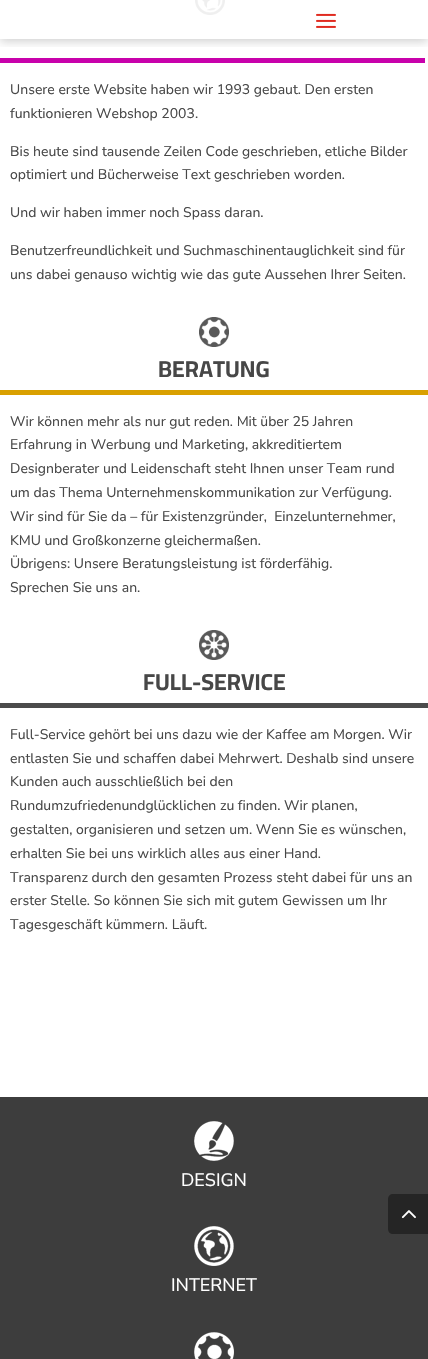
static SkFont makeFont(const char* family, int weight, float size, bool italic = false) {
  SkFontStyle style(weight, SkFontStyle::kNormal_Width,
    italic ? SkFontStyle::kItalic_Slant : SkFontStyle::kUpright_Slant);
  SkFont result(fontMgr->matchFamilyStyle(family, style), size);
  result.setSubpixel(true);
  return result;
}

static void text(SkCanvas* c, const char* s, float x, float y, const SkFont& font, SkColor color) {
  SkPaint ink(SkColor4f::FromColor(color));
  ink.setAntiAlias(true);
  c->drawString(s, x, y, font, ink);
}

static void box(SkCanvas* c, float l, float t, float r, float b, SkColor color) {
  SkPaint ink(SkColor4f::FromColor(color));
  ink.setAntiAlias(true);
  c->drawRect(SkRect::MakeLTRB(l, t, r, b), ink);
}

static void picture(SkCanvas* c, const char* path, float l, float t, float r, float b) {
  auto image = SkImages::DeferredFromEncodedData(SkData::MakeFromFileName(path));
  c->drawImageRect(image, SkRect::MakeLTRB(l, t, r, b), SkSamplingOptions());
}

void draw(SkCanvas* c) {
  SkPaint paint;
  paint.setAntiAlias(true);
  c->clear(0xffffffff);
  picture(c, "img_02.png", 195, 0, 225, 15);
  c->save();
  c->clipRect(SkRect::MakeLTRB(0, 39, 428, 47));
  paint.setColor(0x33000000);
  paint.setMaskFilter(SkMaskFilter::MakeBlur(kNormal_SkBlurStyle, 5));
  c->drawRect(SkRect::MakeLTRB(0, 2, 428, 41), paint);
  paint.setMaskFilter(nullptr);
  c->restore();
  box(c, 195, 0, 225, 15, 0xe6ffffff);
  picture(c, "img_01.png", 316, 13, 336, 28);
  box(c, 0, 58, 425, 63, 0xffc801ab);
  SkFont face1 = makeFont("Nunito Sans", 400, 14);
  text(c, "Unsere erste Website haben wir 1993 gebaut. Den ersten", 10, 94, face1, 0xff474747);
  text(c, "funktionieren Webshop 2003.", 10, 118, face1, 0xff474747);
  text(c, "Bis heute sind tausende Zeilen Code geschrieben, etliche Bilder", 10, 156, face1, 0xff474747);
  text(c, "optimiert und Bücherweise Text geschrieben worden.", 10, 179, face1, 0xff474747);
  text(c, "Und wir haben immer noch Spass daran.", 10, 217, face1, 0xff474747);
  text(c, "Benutzerfreundlichkeit und Suchmaschinentauglichkeit sind für", 10, 255, face1, 0xff474747);
  text(c, "uns dabei genauso wichtig wie das gute Aussehen Ihrer Seiten.", 10, 279, face1, 0xff474747);
  picture(c, "img_03.png", 199, 317, 229, 347);
  box(c, 0, 390, 428, 395, 0xffd9a000);
  SkFont face2 = makeFont("Cairo", 700, 23);
  text(c, "BERATUNG", 158, 377, face2, 0xff474747);
  text(c, "Wir können mehr als nur gut reden. Mit über 25 Jahren", 10, 426, face1, 0xff474747);
  text(c, "Erfahrung in Werbung und Marketing, akkreditiertem", 10, 449, face1, 0xff474747);
  text(c, "Designberater und Leidenschaft steht Ihnen unser Team rund", 10, 473, face1, 0xff474747);
  text(c, "um das Thema Unternehmenskommunikation zur Verfügung.", 10, 497, face1, 0xff474747);
  text(c, "Wir sind für Sie da – für Existenzgründer,  Einzelunternehmer,", 10, 521, face1, 0xff474747);
  text(c, "KMU und Großkonzerne gleichermaßen.", 10, 545, face1, 0xff474747);
  text(c, "Übrigens: Unsere Beratungsleistung ist förderfähig.", 10, 568, face1, 0xff474747);
  text(c, "Sprechen Sie uns an.", 10, 592, face1, 0xff474747);
  picture(c, "img_04.png", 199, 630, 229, 660);
  box(c, 0, 703, 428, 708, 0xff4b4b4b);
  text(c, "FULL-SERVICE", 143, 690, face2, 0xff474747);
  text(c, "Full-Service gehört bei uns dazu wie der Kaffee am Morgen. Wir", 10, 739, face1, 0xff474747);
  text(c, "entlasten Sie und schaffen dabei Mehrwert. Deshalb sind unsere", 10, 763, face1, 0xff474747);
  text(c, "Kunden auch ausschließlich bei den", 10, 786, face1, 0xff474747);
  text(c, "Rundumzufriedenundglücklichen zu finden. Wir planen,", 10, 810, face1, 0xff474747);
  text(c, "gestalten, organisieren und setzen um. Wenn Sie es wünschen,", 10, 834, face1, 0xff474747);
  text(c, "erhalten Sie bei uns wirklich alles aus einer Hand.", 10, 858, face1, 0xff474747);
  text(c, "Transparenz durch den gesamten Prozess steht dabei für uns an", 10, 882, face1, 0xff474747);
  text(c, "erster Stelle. So können Sie sich mit gutem Gewissen um Ihr", 10, 905, face1, 0xff474747);
  text(c, "Tagesgeschäft kümmern. Läuft.", 10, 929, face1, 0xff474747);
  box(c, 0, 1097, 428, 1359, 0xff3d3d3d);
  picture(c, "img_05.png", 194, 1121, 234, 1161);
  SkFont face3 = makeFont("Nunito Sans", 400, 18);
  text(c, "DESIGN", 181, 1186, face3, 0xffffffff);
  picture(c, "img_06.png", 194, 1226, 234, 1266);
  text(c, "INTERNET", 171, 1291, face3, 0xffffffff);
  picture(c, "img_07.png", 194, 1332, 234, 1359);
  paint.setColor(0xff252525);
  c->drawPath(SkPathBuilder().moveTo(393, 1194).lineTo(428, 1194).lineTo(428, 1234).lineTo(393, 1234).cubicTo(390, 1234, 388, 1232, 388, 1229).lineTo(388, 1199).cubicTo(388, 1196, 390, 1194, 393, 1194).close().detach(), paint);
  picture(c, "img_08.png", 401, 1210, 416, 1219);
}
